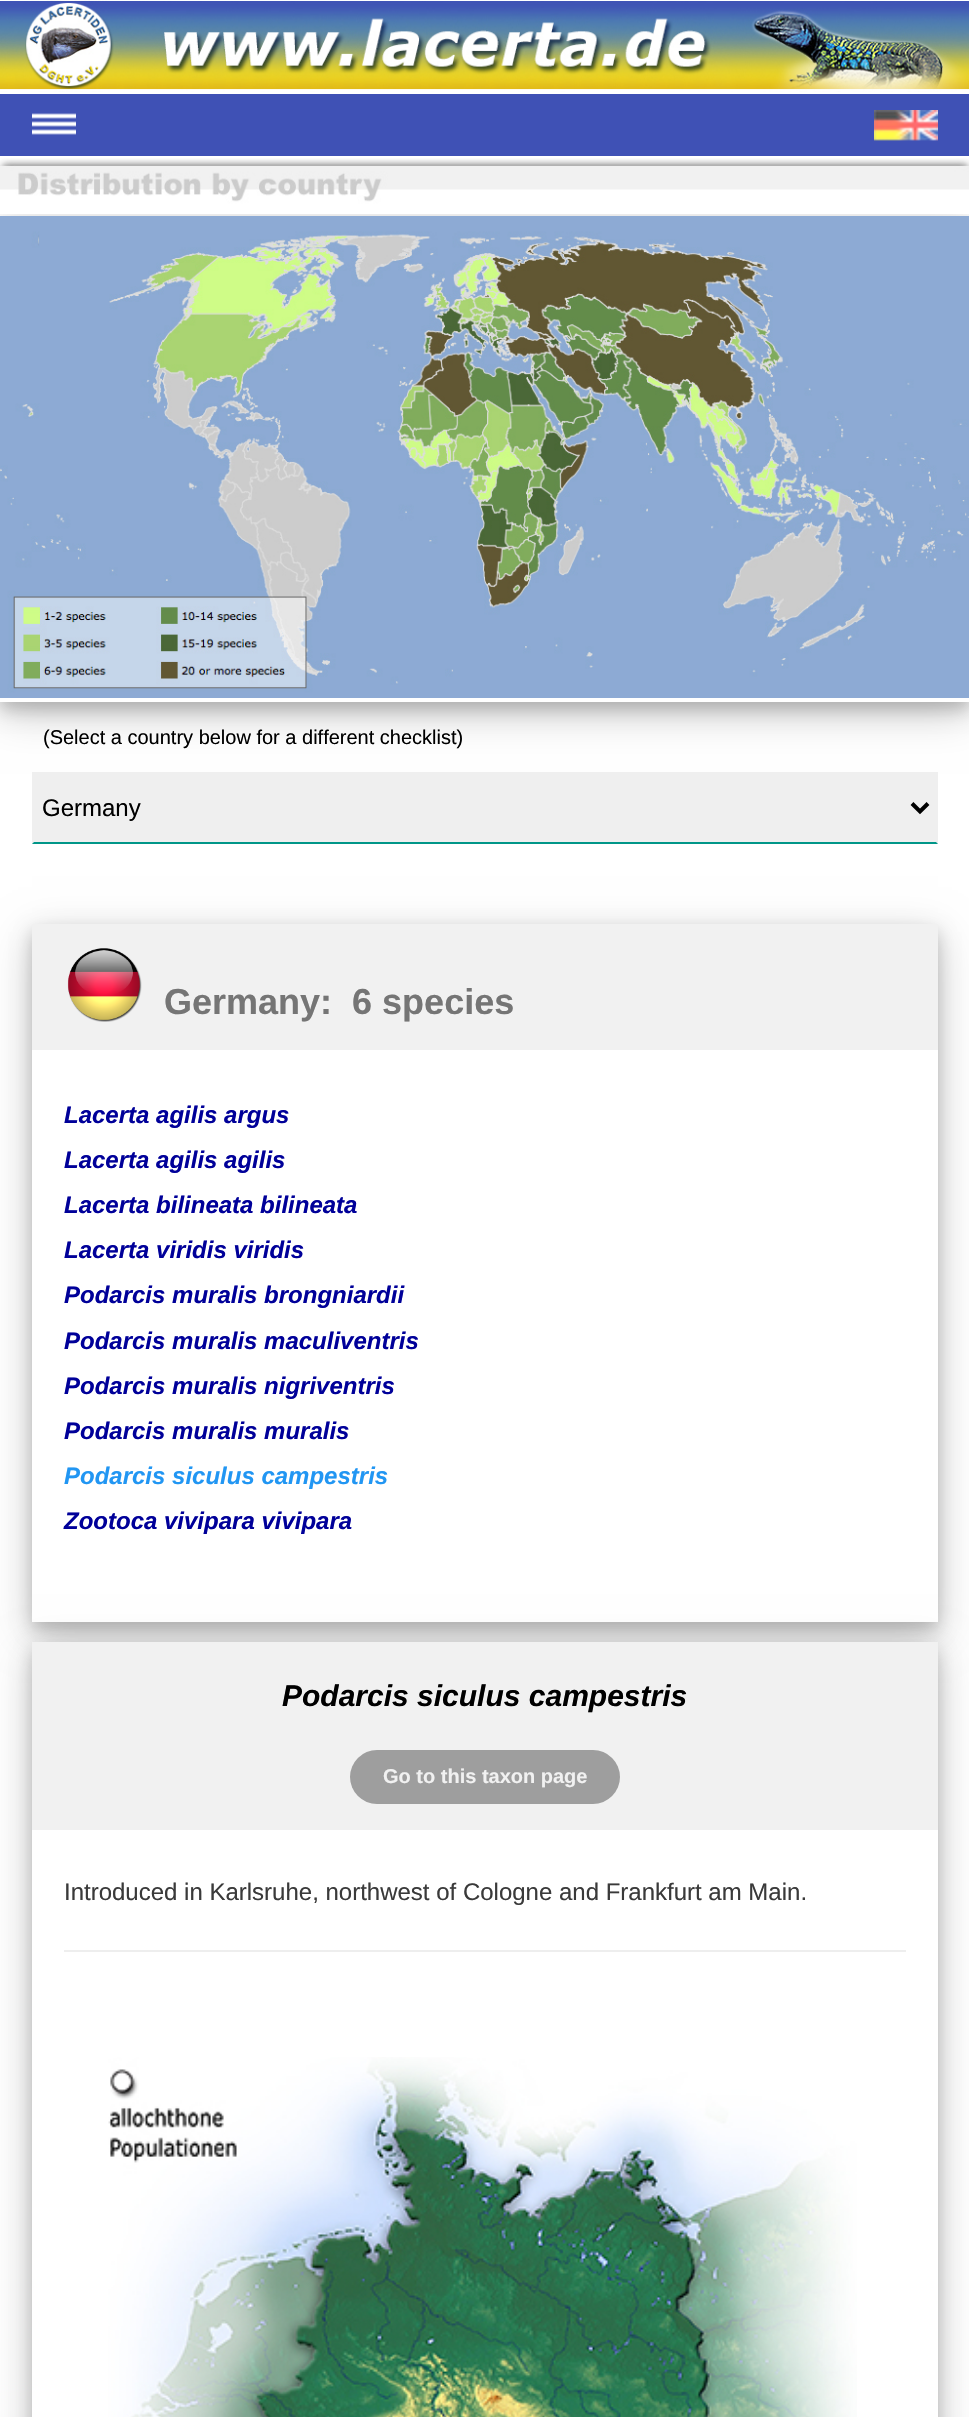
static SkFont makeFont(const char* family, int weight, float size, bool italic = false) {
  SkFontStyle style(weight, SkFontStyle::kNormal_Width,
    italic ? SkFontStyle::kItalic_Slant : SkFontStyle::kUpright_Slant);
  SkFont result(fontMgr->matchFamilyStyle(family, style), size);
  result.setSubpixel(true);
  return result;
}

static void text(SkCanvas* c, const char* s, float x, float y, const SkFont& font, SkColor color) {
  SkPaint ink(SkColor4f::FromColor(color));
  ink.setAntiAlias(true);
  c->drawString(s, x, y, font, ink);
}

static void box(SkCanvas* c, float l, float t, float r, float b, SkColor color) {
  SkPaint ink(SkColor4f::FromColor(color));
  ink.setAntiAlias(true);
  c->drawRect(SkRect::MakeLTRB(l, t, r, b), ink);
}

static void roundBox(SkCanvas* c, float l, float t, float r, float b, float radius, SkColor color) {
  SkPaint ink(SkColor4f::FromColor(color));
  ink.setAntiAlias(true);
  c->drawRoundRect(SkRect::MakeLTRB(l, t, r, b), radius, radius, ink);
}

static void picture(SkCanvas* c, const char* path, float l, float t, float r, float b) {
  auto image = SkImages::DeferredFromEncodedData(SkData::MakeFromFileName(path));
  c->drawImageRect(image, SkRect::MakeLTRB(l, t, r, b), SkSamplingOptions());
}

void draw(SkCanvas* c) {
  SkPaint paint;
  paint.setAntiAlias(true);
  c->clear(0xffffffff);
  picture(c, "img_01.png", 0, 0, 969, 92);
  box(c, 0, 94, 969, 156, 0xff3f51b5);
  picture(c, "img_02.png", 32, 113, 76, 135);
  picture(c, "img_03.png", 874, 110, 938, 141);
  c->save();
  c->clipPath(SkPathBuilder(SkPathFillType::kEvenOdd).moveTo(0, 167).lineTo(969, 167).lineTo(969, 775).lineTo(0, 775).close().moveTo(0, 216).lineTo(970, 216).lineTo(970, 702).lineTo(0, 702).close().detach(), true);
  paint.setColor(0x30000000);
  paint.setMaskFilter(SkMaskFilter::MakeBlur(kNormal_SkBlurStyle, 20));
  c->drawRect(SkRect::MakeLTRB(0, 228, 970, 714), paint);
  paint.setMaskFilter(nullptr);
  c->restore();
  c->save();
  c->clipPath(SkPathBuilder(SkPathFillType::kEvenOdd).moveTo(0, 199).lineTo(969, 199).lineTo(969, 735).lineTo(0, 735).close().moveTo(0, 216).lineTo(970, 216).lineTo(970, 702).lineTo(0, 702).close().detach(), true);
  paint.setColor(0x33000000);
  paint.setMaskFilter(SkMaskFilter::MakeBlur(kNormal_SkBlurStyle, 8));
  c->drawRect(SkRect::MakeLTRB(0, 224, 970, 710), paint);
  paint.setMaskFilter(nullptr);
  c->restore();
  picture(c, "img_04.png", 0, 158, 969, 214);
  picture(c, "img_05.png", 0, 216, 969, 698);
  SkFont face1 = makeFont("Liberation Sans", 400, 20);
  text(c, "(Select a country below for a different checklist)", 43, 744, face1, 0xff000000);
  box(c, 32, 772, 938, 844, 0xffefefef);
  paint.setColor(0xff009688);
  c->drawPath(SkPathBuilder().moveTo(938, 844).lineTo(32, 844).lineTo(34, 842).lineTo(936, 842).close().detach(), paint);
  paint.setStyle(SkPaint::kStroke_Style);
  paint.setStrokeWidth(4);
  paint.setColor(0xff000000);
  c->drawPath(SkPathBuilder().moveTo(912, 803.5f).lineTo(920, 811.5f).lineTo(928, 803.5f).detach(), paint);
  SkFont face2 = makeFont("Liberation Sans", 400, 24);
  text(c, "Germany", 42, 816, face2, 0xff000000);
  c->save();
  c->clipPath(SkPathBuilder(SkPathFillType::kEvenOdd).moveTo(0, 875).lineTo(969, 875).lineTo(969, 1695).lineTo(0, 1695).close().moveTo(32, 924).lineTo(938, 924).lineTo(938, 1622).lineTo(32, 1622).close().detach(), true);
  paint.setStyle(SkPaint::kFill_Style);
  paint.setColor(0x30000000);
  paint.setMaskFilter(SkMaskFilter::MakeBlur(kNormal_SkBlurStyle, 20));
  c->drawRect(SkRect::MakeLTRB(32, 936, 938, 1634), paint);
  paint.setMaskFilter(nullptr);
  c->restore();
  c->save();
  c->clipPath(SkPathBuilder(SkPathFillType::kEvenOdd).moveTo(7, 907).lineTo(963, 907).lineTo(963, 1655).lineTo(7, 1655).close().moveTo(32, 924).lineTo(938, 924).lineTo(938, 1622).lineTo(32, 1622).close().detach(), true);
  paint.setColor(0x33000000);
  paint.setMaskFilter(SkMaskFilter::MakeBlur(kNormal_SkBlurStyle, 8));
  c->drawRect(SkRect::MakeLTRB(32, 932, 938, 1630), paint);
  paint.setMaskFilter(nullptr);
  c->restore();
  box(c, 32, 924, 938, 1050, 0xfff1f1f1);
  picture(c, "img_06.png", 67, 948, 142, 1022);
  SkFont face3 = makeFont("Liberation Sans", 700, 36);
  text(c, "Germany:  6 species", 164, 1014, face3, 0xff757575);
  SkFont face4 = makeFont("Liberation Sans", 700, 24, true);
  text(c, "Lacerta agilis argus", 64, 1123, face4, 0xff000099);
  text(c, "Lacerta agilis agilis", 64, 1168, face4, 0xff000099);
  text(c, "Lacerta bilineata bilineata", 64, 1213, face4, 0xff000099);
  text(c, "Lacerta viridis viridis", 64, 1258, face4, 0xff000099);
  text(c, "Podarcis muralis brongniardii", 64, 1303, face4, 0xff000099);
  text(c, "Podarcis muralis maculiventris", 64, 1349, face4, 0xff000099);
  text(c, "Podarcis muralis nigriventris", 64, 1394, face4, 0xff000099);
  text(c, "Podarcis muralis muralis", 64, 1439, face4, 0xff000099);
  text(c, "Podarcis siculus campestris", 64, 1484, face4, 0xff2196f3);
  text(c, "Zootoca vivipara vivipara", 64, 1529, face4, 0xff000099);
  c->save();
  c->clipPath(SkPathBuilder(SkPathFillType::kEvenOdd).moveTo(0, 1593).lineTo(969, 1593).lineTo(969, 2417).lineTo(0, 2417).close().moveTo(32, 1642).lineTo(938, 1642).lineTo(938, 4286).lineTo(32, 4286).close().detach(), true);
  paint.setColor(0x30000000);
  paint.setMaskFilter(SkMaskFilter::MakeBlur(kNormal_SkBlurStyle, 20));
  c->drawRect(SkRect::MakeLTRB(32, 1654, 938, 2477), paint);
  paint.setMaskFilter(nullptr);
  c->restore();
  c->save();
  c->clipPath(SkPathBuilder(SkPathFillType::kEvenOdd).moveTo(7, 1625).lineTo(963, 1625).lineTo(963, 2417).lineTo(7, 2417).close().moveTo(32, 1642).lineTo(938, 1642).lineTo(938, 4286).lineTo(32, 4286).close().detach(), true);
  paint.setColor(0x33000000);
  paint.setMaskFilter(SkMaskFilter::MakeBlur(kNormal_SkBlurStyle, 8));
  c->drawRect(SkRect::MakeLTRB(32, 1650, 938, 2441), paint);
  paint.setMaskFilter(nullptr);
  c->restore();
  box(c, 32, 1642, 938, 1830, 0xfff1f1f1);
  SkFont face5 = makeFont("Liberation Sans", 700, 30, true);
  text(c, "Podarcis siculus campestris", 282, 1706, face5, 0xff000000);
  roundBox(c, 350, 1750, 620, 1804, 27, 0xff9e9e9e);
  SkFont face6 = makeFont("Liberation Sans", 700, 20);
  text(c, "Go to this taxon page", 383, 1783, face6, 0xfff1f1f1);
  text(c, "Introduced in Karlsruhe, northwest of Cologne and Frankfurt am Main.", 64, 1900, face2, 0xff3a3a3a);
  box(c, 64, 1950, 906, 1952, 0xffeeeeee);
  picture(c, "img_07.png", 108, 2057, 857, 2417);
}
